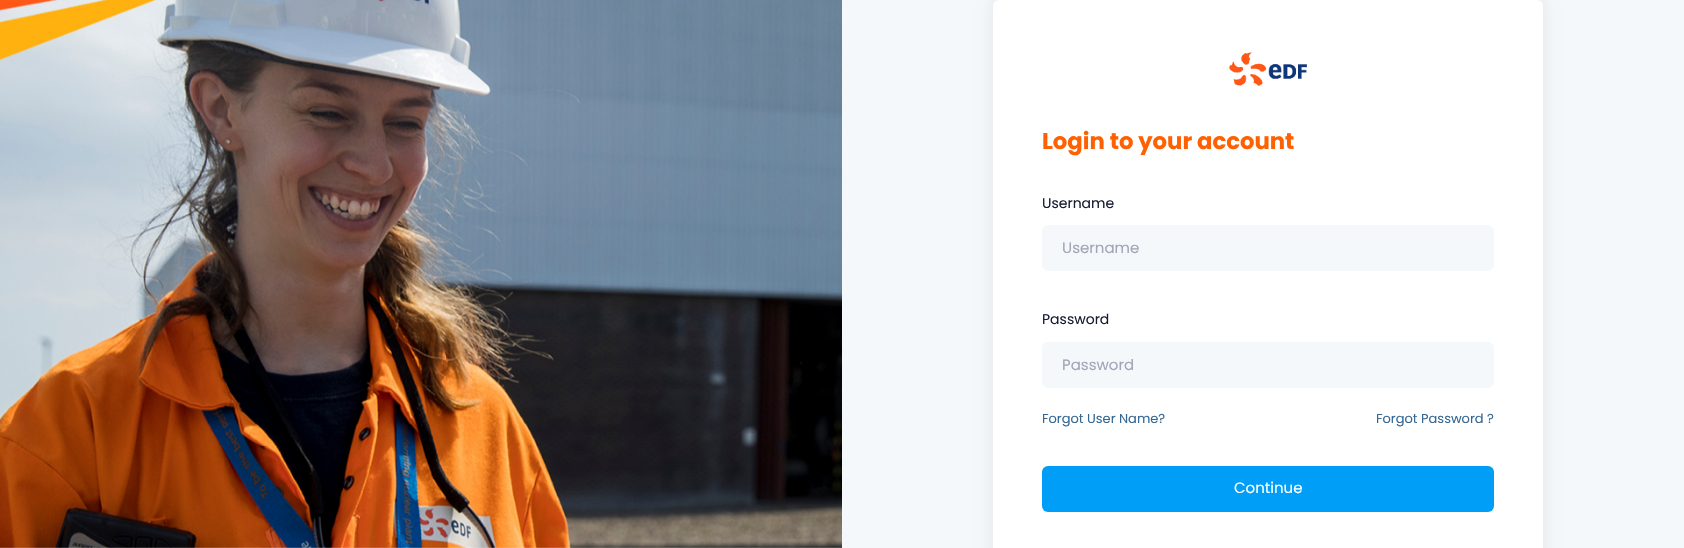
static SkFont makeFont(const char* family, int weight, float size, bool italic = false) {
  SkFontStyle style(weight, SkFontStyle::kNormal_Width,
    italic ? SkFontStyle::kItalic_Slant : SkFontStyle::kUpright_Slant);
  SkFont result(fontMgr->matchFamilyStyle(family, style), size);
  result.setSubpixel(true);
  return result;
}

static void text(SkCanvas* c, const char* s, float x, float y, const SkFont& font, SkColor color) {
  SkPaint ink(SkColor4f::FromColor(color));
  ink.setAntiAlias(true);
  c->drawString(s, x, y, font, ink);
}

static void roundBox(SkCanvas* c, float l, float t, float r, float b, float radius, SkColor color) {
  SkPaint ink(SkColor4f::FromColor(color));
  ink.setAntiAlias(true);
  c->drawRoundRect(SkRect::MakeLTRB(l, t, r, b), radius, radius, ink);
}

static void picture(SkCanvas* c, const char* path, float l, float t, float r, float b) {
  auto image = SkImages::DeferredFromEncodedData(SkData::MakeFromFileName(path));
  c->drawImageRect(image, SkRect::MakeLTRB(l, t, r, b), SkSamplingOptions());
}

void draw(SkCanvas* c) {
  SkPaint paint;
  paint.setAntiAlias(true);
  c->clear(0xfff5f8fa);
  picture(c, "img_01.png", 0, 0, 842, 548);
  paint.setColor(0x0d000000);
  paint.setMaskFilter(SkMaskFilter::MakeBlur(kNormal_SkBlurStyle, 6.5f));
  c->drawRoundRect(SkRect::MakeLTRB(990, -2, 1546, 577), 9, 9, paint);
  paint.setMaskFilter(nullptr);
  roundBox(c, 993, 0, 1543, 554, 6, 0xffffffff);
  picture(c, "img_02.png", 1229, 52, 1307, 86);
  SkFont face1 = makeFont("Poppins", 700, 22.75f);
  text(c, "Login to your account", 1042, 149, face1, 0xffff6000);
  SkFont face2 = makeFont("Poppins", 400, 14);
  text(c, "Username", 1042, 208, face2, 0xff181c32);
  paint.setColor(0xfff5f8fa);
  c->drawRoundRect(SkRect::MakeLTRB(1042.5f, 225.5f, 1493.5f, 270.5f), 5.5f, 5.5f, paint);
  paint.setStyle(SkPaint::kStroke_Style);
  paint.setStrokeWidth(1);
  c->drawRoundRect(SkRect::MakeLTRB(1042.5f, 225.5f, 1493.5f, 270.5f), 5.5f, 5.5f, paint);
  SkFont face3 = makeFont("Poppins", 400, 15);
  text(c, "Username", 1062, 253, face3, 0xffa1a5b7);
  text(c, "Password", 1042, 324, face2, 0xff181c32);
  paint.setStyle(SkPaint::kFill_Style);
  c->drawRoundRect(SkRect::MakeLTRB(1042.5f, 342.5f, 1493.5f, 387.5f), 5.5f, 5.5f, paint);
  paint.setStyle(SkPaint::kStroke_Style);
  c->drawRoundRect(SkRect::MakeLTRB(1042.5f, 342.5f, 1493.5f, 387.5f), 5.5f, 5.5f, paint);
  text(c, "Password", 1062, 370, face3, 0xffa1a5b7);
  SkFont face4 = makeFont("Poppins", 400, 13);
  text(c, "Forgot User Name?", 1042, 423, face4, 0xff346793);
  text(c, "Forgot Password ?", 1376, 423, face4, 0xff346793);
  roundBox(c, 1042, 466, 1494, 512, 6, 0xff009ef7);
  text(c, "Continue", 1234, 493, face3, 0xffffffff);
}
